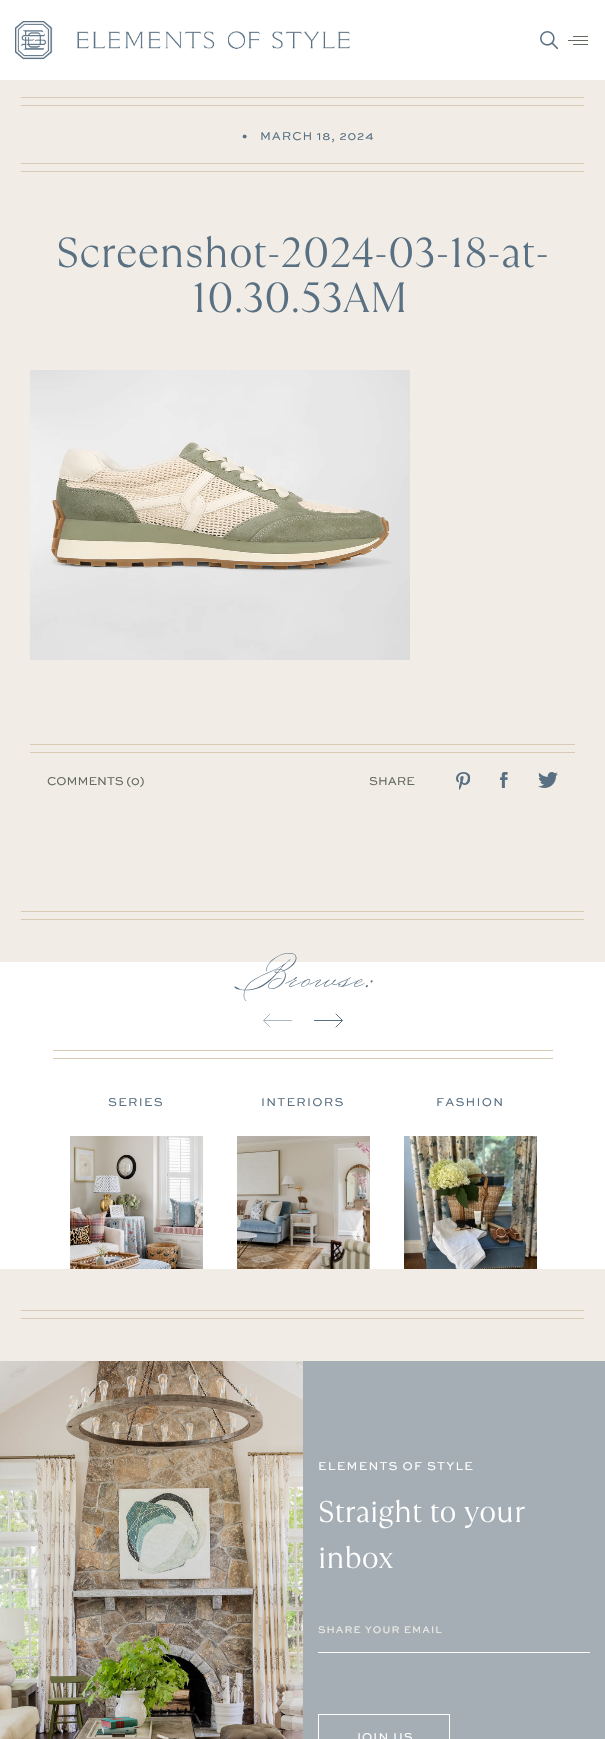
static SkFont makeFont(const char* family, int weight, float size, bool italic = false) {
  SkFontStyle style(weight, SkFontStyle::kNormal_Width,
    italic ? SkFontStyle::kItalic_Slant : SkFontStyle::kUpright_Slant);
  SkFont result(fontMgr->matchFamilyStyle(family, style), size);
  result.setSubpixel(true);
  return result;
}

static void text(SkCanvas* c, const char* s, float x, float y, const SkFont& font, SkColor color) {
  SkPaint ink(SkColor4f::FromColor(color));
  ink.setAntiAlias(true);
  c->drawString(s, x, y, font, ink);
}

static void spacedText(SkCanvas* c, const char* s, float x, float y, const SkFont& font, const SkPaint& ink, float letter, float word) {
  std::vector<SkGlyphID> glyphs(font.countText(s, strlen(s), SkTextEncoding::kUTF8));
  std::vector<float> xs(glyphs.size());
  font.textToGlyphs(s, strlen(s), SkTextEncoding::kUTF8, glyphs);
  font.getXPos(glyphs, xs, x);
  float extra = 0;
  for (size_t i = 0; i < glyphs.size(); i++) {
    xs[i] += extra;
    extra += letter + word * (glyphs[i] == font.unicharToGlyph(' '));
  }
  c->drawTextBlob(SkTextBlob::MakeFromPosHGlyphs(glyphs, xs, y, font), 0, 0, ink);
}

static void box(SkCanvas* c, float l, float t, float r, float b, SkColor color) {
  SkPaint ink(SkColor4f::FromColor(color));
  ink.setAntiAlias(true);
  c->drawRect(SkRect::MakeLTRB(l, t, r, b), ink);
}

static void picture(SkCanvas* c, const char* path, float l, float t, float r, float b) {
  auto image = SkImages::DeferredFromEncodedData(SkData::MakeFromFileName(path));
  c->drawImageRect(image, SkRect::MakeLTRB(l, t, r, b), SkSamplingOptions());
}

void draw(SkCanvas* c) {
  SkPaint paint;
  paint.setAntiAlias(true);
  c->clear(0xfff1ede6);
  box(c, 0, 0, 605, 80, 0xffffffff);
  picture(c, "img_01.png", 15, 21, 351, 60);
  picture(c, "img_02.png", 540, 31, 558, 49);
  box(c, 568, 40, 588, 41, 0xff62695d);
  box(c, 573, 36, 588, 37, 0xff62695d);
  box(c, 573, 44, 588, 45, 0xff62695d);
  box(c, 21, 105, 584, 106, 0xffd7cab4);
  box(c, 21, 97, 584, 98, 0xffd7cab4);
  SkFont face1 = makeFont("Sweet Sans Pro", 400, 12);
  paint.setColor(0xff597083);
  spacedText(c, "•", 242, 140, face1, paint, 0.9f, 0);
  spacedText(c, "MARCH 18, 2024", 260, 140, face1, paint, 0.9f, 0);
  box(c, 21, 171, 584, 172, 0xffd7cab4);
  box(c, 21, 163, 584, 164, 0xffd7cab4);
  SkFont face2 = makeFont("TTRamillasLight", 300, 42);
  text(c, "Screenshot-2024-03-18-at-", 56, 267, face2, 0xff597083);
  text(c, "10.30.53 AM", 192, 312, face2, 0xff597083);
  picture(c, "img_03.png", 30, 370, 410, 660);
  box(c, 30, 752, 575, 753, 0xffd7cab4);
  box(c, 30, 744, 575, 745, 0xffd7cab4);
  text(c, "COMMENTS (0)", 47, 785, face1, 0xff62695d);
  text(c, "SHARE", 369, 785, face1, 0xff62695d);
  picture(c, "img_04.png", 456, 772, 470, 790);
  picture(c, "img_05.png", 500, 772, 508, 788);
  picture(c, "img_06.png", 538, 772, 558, 788);
  box(c, 21, 919, 584, 920, 0xffd7cab4);
  box(c, 21, 911, 584, 912, 0xffd7cab4);
  box(c, 0, 962, 605, 1269, 0xffffffff);
  box(c, 53, 1050, 553, 1051, 0xffd7cab4);
  SkFont face3 = makeFont("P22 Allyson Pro", 400, 48, true);
  text(c, "Browse:", 234, 987, face3, 0xff597083);
  box(c, 53, 1058, 553, 1059, 0xffd7cab4);
  paint.setStyle(SkPaint::kStroke_Style);
  paint.setStrokeWidth(1);
  paint.setStrokeCap(SkPaint::kRound_Cap);
  paint.setStrokeJoin(SkPaint::kRound_Join);
  paint.setColor(0xffacb8c1);
  c->drawPath(SkPathBuilder().moveTo(291.5f, 1020.5f).lineTo(263.5f, 1020.5f).moveTo(270, 1027).lineTo(263.5f, 1020.5f).lineTo(270, 1014).detach(), paint);
  paint.setColor(0xff597083);
  c->drawPath(SkPathBuilder().moveTo(314.5f, 1020.5f).lineTo(342.5f, 1020.5f).moveTo(336, 1014).lineTo(342.5f, 1020.5f).lineTo(336, 1027).detach(), paint);
  paint.setStyle(SkPaint::kFill_Style);
  spacedText(c, "SERIES", 108, 1106, face1, paint, 1.25f, 0);
  picture(c, "img_07.png", 70, 1136, 203, 1269);
  spacedText(c, "INTERIORS", 261, 1106, face1, paint, 1.25f, 0);
  picture(c, "img_08.png", 237, 1136, 370, 1269);
  spacedText(c, "FASHION", 436, 1106, face1, paint, 1.25f, 0);
  picture(c, "img_09.png", 404, 1136, 537, 1269);
  box(c, 21, 1318, 584, 1319, 0xffd7cab4);
  box(c, 21, 1310, 584, 1311, 0xffd7cab4);
  box(c, 303, 1361, 605, 1739, 0xffa4aeb4);
  picture(c, "img_10.png", 0, 1361, 303, 1739);
  paint.setColor(0xffffffff);
  spacedText(c, "ELEMENTS OF STYLE", 318, 1470, face1, paint, 1.2f, 0);
  SkFont face4 = makeFont("TTRamillasLight", 300, 30);
  text(c, "Straight to your", 318, 1522, face4, 0xffffffff);
  text(c, "inbox", 318, 1568, face4, 0xffffffff);
  box(c, 318, 1652, 590, 1653, 0xffffffff);
  SkFont face5 = makeFont("Sweet Sans Pro", 400, 10);
  paint.setColor(0xfff1ede6);
  spacedText(c, "SHARE YOUR EMAIL", 318, 1633, face5, paint, 1.1f, 0);
  paint.setStyle(SkPaint::kStroke_Style);
  paint.setStrokeCap(SkPaint::kButt_Cap);
  paint.setStrokeJoin(SkPaint::kMiter_Join);
  paint.setColor(0xffffffff);
  c->drawRect(SkRect::MakeLTRB(318.5f, 1714.5f, 449.5f, 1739.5f), paint);
  paint.setStyle(SkPaint::kFill_Style);
  spacedText(c, "JOIN US", 353, 1741, face1, paint, 1.1f, 0);
}
